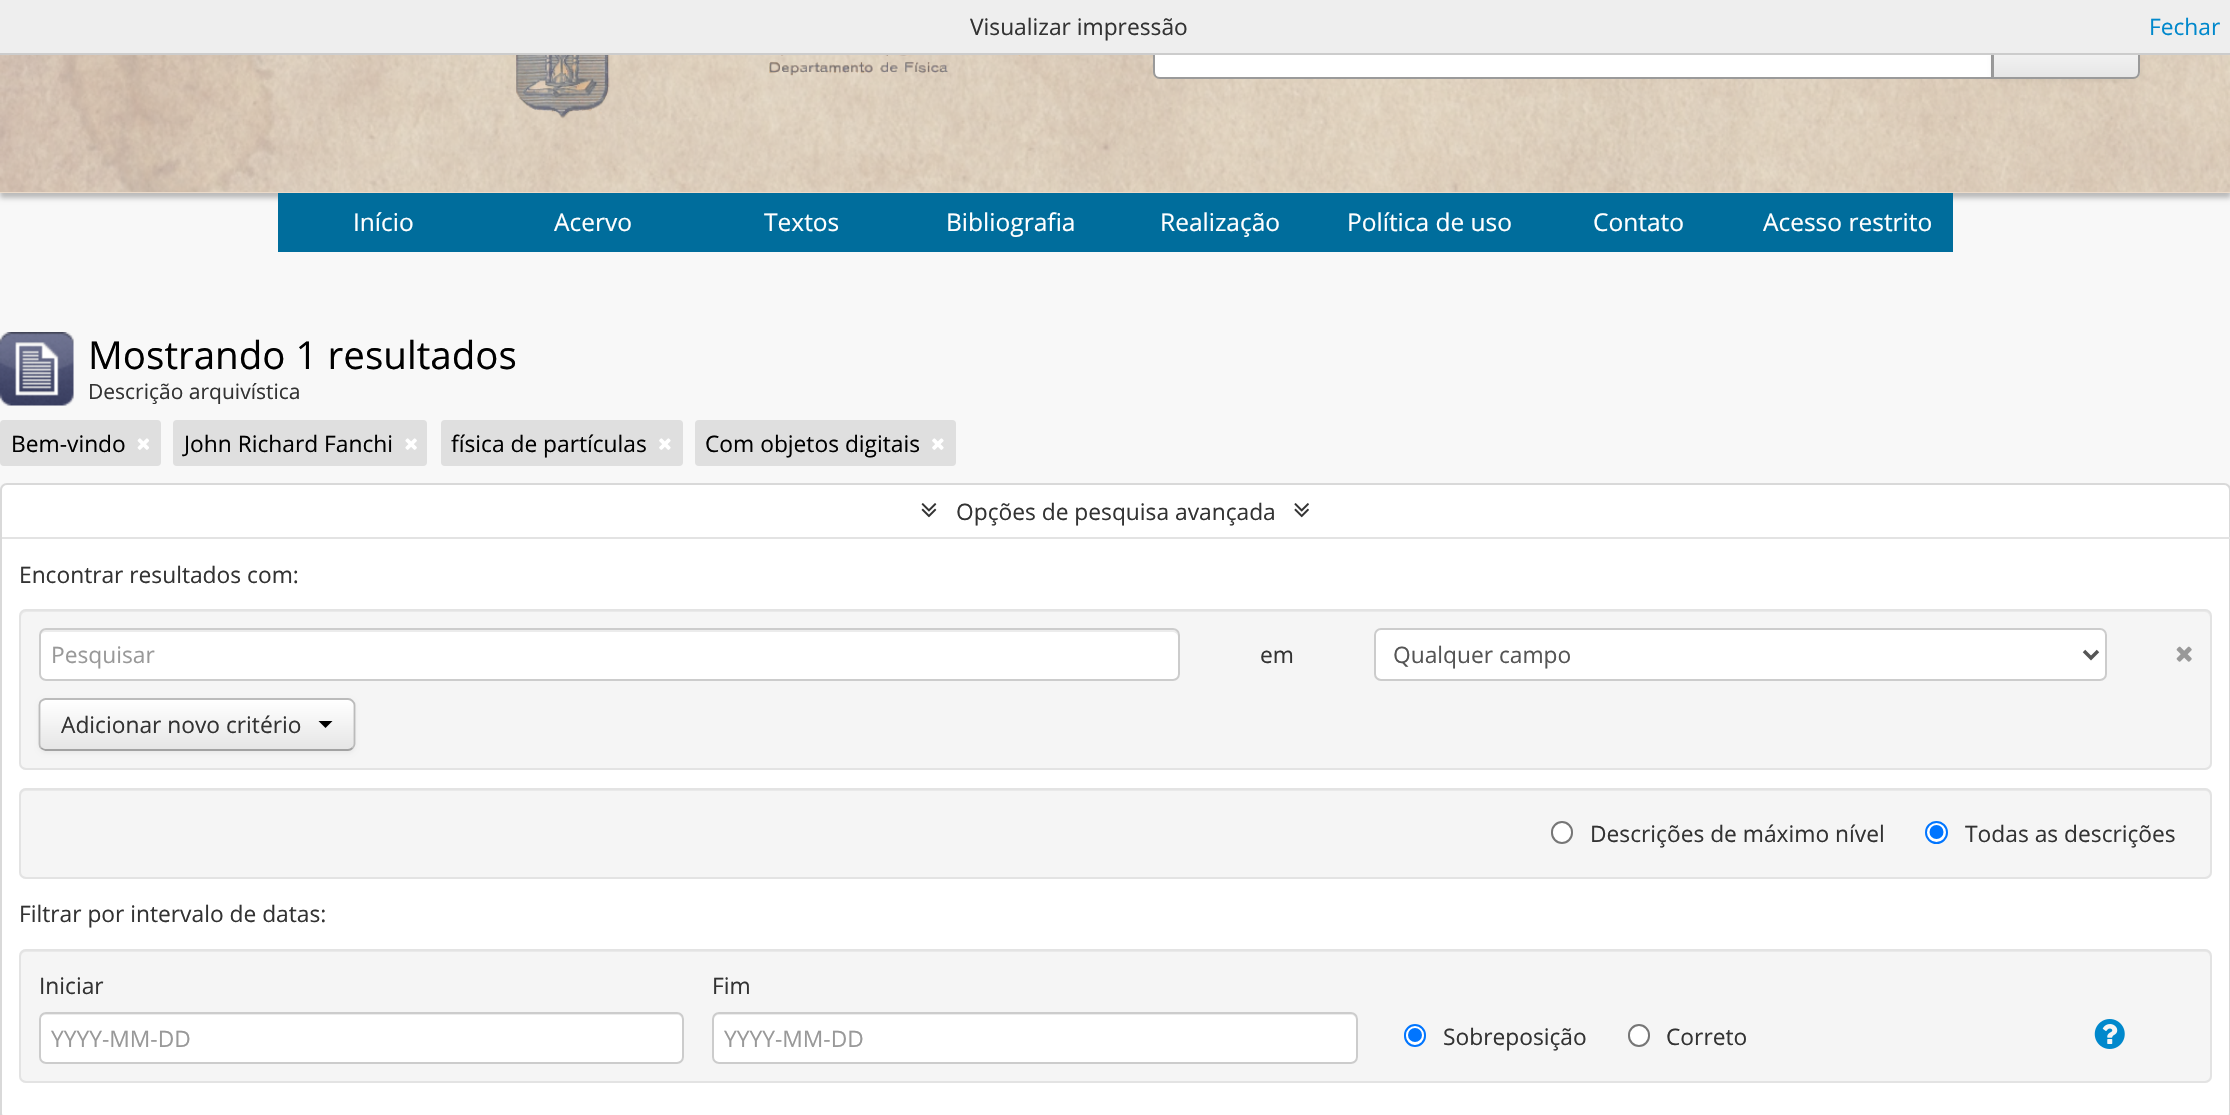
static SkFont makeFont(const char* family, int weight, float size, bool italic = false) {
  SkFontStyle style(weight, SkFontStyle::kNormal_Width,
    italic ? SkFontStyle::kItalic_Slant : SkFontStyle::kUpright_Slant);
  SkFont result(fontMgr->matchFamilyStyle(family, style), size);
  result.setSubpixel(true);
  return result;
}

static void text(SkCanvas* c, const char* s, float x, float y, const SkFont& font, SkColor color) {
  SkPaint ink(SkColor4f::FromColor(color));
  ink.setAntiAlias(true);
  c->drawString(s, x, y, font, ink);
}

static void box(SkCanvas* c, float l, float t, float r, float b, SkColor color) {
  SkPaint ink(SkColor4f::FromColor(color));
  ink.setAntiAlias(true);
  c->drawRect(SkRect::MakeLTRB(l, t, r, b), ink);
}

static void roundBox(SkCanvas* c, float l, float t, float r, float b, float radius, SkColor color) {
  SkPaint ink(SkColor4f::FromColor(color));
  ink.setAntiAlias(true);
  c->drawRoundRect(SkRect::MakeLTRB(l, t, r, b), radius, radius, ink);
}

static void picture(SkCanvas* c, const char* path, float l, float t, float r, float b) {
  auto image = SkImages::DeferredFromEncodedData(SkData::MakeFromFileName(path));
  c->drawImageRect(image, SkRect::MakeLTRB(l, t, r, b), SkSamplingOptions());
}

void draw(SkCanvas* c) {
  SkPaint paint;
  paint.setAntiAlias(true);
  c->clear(0xfff8f8f8);
  paint.setColor(0x40000000);
  paint.setMaskFilter(SkMaskFilter::MakeBlur(kNormal_SkBlurStyle, 2.5f));
  c->drawRect(SkRect::MakeLTRB(0, -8, 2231, 198), paint);
  paint.setMaskFilter(nullptr);
  box(c, 0, 192, 2230, 193, 0xffebdac9);
  picture(c, "img_01.png", 0, 55, 2230, 192);
  picture(c, "img_02.png", 516, 55, 1021, 119);
  paint.setColor(0xffffffff);
  c->drawPath(SkPathBuilder().moveTo(1160, 27).lineTo(1992, 27).lineTo(1992, 78).lineTo(1160, 78).cubicTo(1156.5f, 78, 1154, 75.5f, 1154, 72).lineTo(1154, 33).cubicTo(1154, 29.5f, 1156.5f, 27, 1160, 27).close().detach(), paint);
  paint.setStyle(SkPaint::kStroke_Style);
  paint.setStrokeWidth(2);
  paint.setColor(0xff9a9a9a);
  c->drawPath(SkPathBuilder().moveTo(1160, 27).lineTo(1992, 27).lineTo(1992, 78).lineTo(1160, 78).cubicTo(1156.5f, 78, 1154, 75.5f, 1154, 72).lineTo(1154, 33).cubicTo(1154, 29.5f, 1156.5f, 27, 1160, 27).close().detach(), paint);
  paint.setStyle(SkPaint::kFill_Style);
  paint.setColor(0x0d000000);
  paint.setMaskFilter(SkMaskFilter::MakeBlur(kNormal_SkBlurStyle, 2));
  c->drawRoundRect(SkRect::MakeLTRB(1992, 28, 2140, 81), 7, 7, paint);
  paint.setMaskFilter(nullptr);
  c->save();
  c->clipPath(SkPathBuilder().moveTo(1992, 26).lineTo(2133, 26).cubicTo(2137, 26, 2140, 29, 2140, 33).lineTo(2140, 72).cubicTo(2140, 76, 2137, 79, 2133, 79).lineTo(1992, 79).close().detach(), true);
  {
    const SkColor colors[] = {0xffffffff, 0xffe6e6e6};
    const float stops[] = {0, 1};
    const SkPoint ends[] = {{2066, 28}, {2066, 77}};
    paint.setShader(SkGradientShader::MakeLinear(ends, colors, stops, 2, SkTileMode::kClamp));
    paint.setAlpha(255);
  }
  c->drawRect(SkRect::MakeLTRB(1994, 55, 2140, 77), paint);
  c->restore();
  paint.setStyle(SkPaint::kStroke_Style);
  paint.setShader(nullptr);
  paint.setColor(0xff9a9a9a);
  c->drawPath(SkPathBuilder().moveTo(1993, 27).lineTo(2133, 27).cubicTo(2136.5f, 27, 2139, 29.5f, 2139, 33).lineTo(2139, 72).cubicTo(2139, 75.5f, 2136.5f, 78, 2133, 78).lineTo(1993, 78).close().detach(), paint);
  box(c, 0, 0, 2230, 53, 0xffeeeeee);
  box(c, 0, 53, 2230, 55, 0xffcccccc);
  SkFont face1 = makeFont("Open Sans", 400, 22.75f);
  text(c, "Visualizar impressão", 970, 35, face1, 0xff333333);
  text(c, "Fechar", 2149, 35, face1, 0xff0088cc);
  picture(c, "img_03.png", 0, 332, 74, 406);
  SkFont face2 = makeFont("Open Sans", 400, 38.5f);
  text(c, "Mostrando 1 resultados", 88, 369, face2, 0xff000000);
  SkFont face3 = makeFont("Open Sans", 400, 21);
  text(c, "Descrição arquivística", 88, 399, face3, 0xff333333);
  roundBox(c, 0, 420, 161, 466, 4, 0xffdfdfdf);
  text(c, "Bem-vindo", 11, 452, face1, 0xff000000);
  picture(c, "img_04.png", 137, 438, 149, 450);
  roundBox(c, 173, 420, 427, 466, 4, 0xffdfdfdf);
  text(c, "John Richard Fanchi", 184, 452, face1, 0xff000000);
  picture(c, "img_05.png", 405, 438, 417, 450);
  roundBox(c, 441, 420, 683, 466, 4, 0xffdfdfdf);
  text(c, "física de partículas", 451, 452, face1, 0xff000000);
  picture(c, "img_06.png", 659, 438, 671, 450);
  roundBox(c, 695, 420, 956, 466, 4, 0xffdfdfdf);
  text(c, "Com objetos digitais", 705, 452, face1, 0xff000000);
  picture(c, "img_06.png", 932, 438, 944, 450);
  paint.setStyle(SkPaint::kFill_Style);
  paint.setColor(0x33000000);
  paint.setMaskFilter(SkMaskFilter::MakeBlur(kNormal_SkBlurStyle, 1));
  c->drawRoundRect(SkRect::MakeLTRB(0, 485, 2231, 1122), 7, 7, paint);
  paint.setMaskFilter(nullptr);
  paint.setColor(0xffffffff);
  c->drawRoundRect(SkRect::MakeLTRB(1, 484, 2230, 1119), 6, 6, paint);
  paint.setStyle(SkPaint::kStroke_Style);
  paint.setColor(0xffd9d9d9);
  c->drawRoundRect(SkRect::MakeLTRB(1, 484, 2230, 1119), 6, 6, paint);
  picture(c, "img_07.png", 921, 503, 937, 518);
  text(c, "Opções de pesquisa avançada", 956, 520, face1, 0xff333333);
  picture(c, "img_08.png", 1294, 503, 1309, 518);
  box(c, 2, 537, 2230, 539, 0xffe3e3e3);
  text(c, "Encontrar resultados com:", 19, 583, face1, 0xff333333);
  roundBox(c, 19, 609, 2212, 770, 7, 0xfff5f5f5);
  paint.setStyle(SkPaint::kFill_Style);
  paint.setColor(0xffe9e9e9);
  c->drawPath(SkPathBuilder().moveTo(26, 612).lineTo(2205, 612).cubicTo(2208, 612, 2210, 615, 2210, 618).lineTo(2210, 616).cubicTo(2210, 613, 2208, 611, 2205, 611).lineTo(26, 611).cubicTo(23, 611, 21, 613, 21, 616).lineTo(21, 618).cubicTo(21, 615, 23, 612, 26, 612).close().detach(), paint);
  paint.setStyle(SkPaint::kStroke_Style);
  paint.setColor(0xffe3e3e3);
  c->drawRoundRect(SkRect::MakeLTRB(20, 610, 2211, 769), 6, 6, paint);
  roundBox(c, 39, 628, 1180, 681, 7, 0xffffffff);
  paint.setStyle(SkPaint::kFill_Style);
  paint.setColor(0xffececec);
  c->drawPath(SkPathBuilder().moveTo(46, 632).lineTo(1172, 632).cubicTo(1175, 632, 1178, 634, 1178, 637).lineTo(1178, 635).cubicTo(1178, 632, 1176, 630, 1173, 630).lineTo(45, 630).cubicTo(42, 630, 40, 632, 40, 635).lineTo(40, 637).cubicTo(40, 634, 43, 632, 46, 632).close().detach(), paint);
  paint.setStyle(SkPaint::kStroke_Style);
  paint.setColor(0xffcccccc);
  c->drawRoundRect(SkRect::MakeLTRB(40, 629, 1179, 680), 6, 6, paint);
  text(c, "Pesquisar", 51, 663, face1, 0xff999999);
  text(c, "em", 1260, 663, face1, 0xff333333);
  paint.setStyle(SkPaint::kFill_Style);
  paint.setColor(0xffffffff);
  c->drawRoundRect(SkRect::MakeLTRB(1375, 629, 2106, 680), 6, 6, paint);
  paint.setStyle(SkPaint::kStroke_Style);
  paint.setColor(0xffcccccc);
  c->drawRoundRect(SkRect::MakeLTRB(1375, 629, 2106, 680), 6, 6, paint);
  paint.setStrokeWidth(3.5f);
  paint.setColor(0xff555555);
  c->drawPath(SkPathBuilder().moveTo(2084, 651).lineTo(2091, 658).lineTo(2098, 651).detach(), paint);
  text(c, "Qualquer campo", 1393, 663, face1, 0xff555555);
  picture(c, "img_09.png", 2176, 646, 2192, 662);
  paint.setStyle(SkPaint::kFill_Style);
  paint.setColor(0x0d000000);
  paint.setMaskFilter(SkMaskFilter::MakeBlur(kNormal_SkBlurStyle, 2));
  c->drawRoundRect(SkRect::MakeLTRB(39, 700, 355, 753), 7, 7, paint);
  paint.setMaskFilter(nullptr);
  roundBox(c, 39, 698, 355, 751, 7, 0xfff5f5f5);
  c->save();
  c->clipPath(SkPathBuilder().moveTo(46, 698).lineTo(348, 698).cubicTo(352, 698, 355, 701, 355, 705).lineTo(355, 744).cubicTo(355, 748, 352, 751, 348, 751).lineTo(46, 751).cubicTo(42, 751, 39, 748, 39, 744).lineTo(39, 705).cubicTo(39, 701, 42, 698, 46, 698).close().detach(), true);
  {
    const SkColor colors[] = {0xffffffff, 0xffe6e6e6};
    const float stops[] = {0, 1};
    const SkPoint ends[] = {{197, 700}, {197, 749}};
    paint.setShader(SkGradientShader::MakeLinear(ends, colors, stops, 2, SkTileMode::kClamp));
    paint.setAlpha(255);
  }
  c->drawRect(SkRect::MakeLTRB(39, 700, 355, 749), paint);
  c->restore();
  paint.setStyle(SkPaint::kStroke_Style);
  paint.setStrokeWidth(1.8f);
  paint.setShader(nullptr);
  paint.setColor(0xffa2a2a2);
  c->drawPath(SkPathBuilder().moveTo(352.5f, 748).cubicTo(351.5f, 749, 350, 750, 348, 750).lineTo(45.5f, 750).cubicTo(44, 750, 42.5f, 749, 41, 748).detach(), paint);
  paint.setColor(0xffbbbbbb);
  c->drawPath(SkPathBuilder().moveTo(41, 748).cubicTo(40, 747, 39.5f, 745.5f, 39.5f, 744).lineTo(39.5f, 705).cubicTo(39.5f, 703.5f, 40, 702, 41, 701).cubicTo(42.5f, 700, 44, 699, 45.5f, 699).lineTo(348, 699).cubicTo(350, 699, 351.5f, 700, 352.5f, 701).cubicTo(353.5f, 702, 354.5f, 703.5f, 354.5f, 705).lineTo(354.5f, 744).cubicTo(354.5f, 745.5f, 353.5f, 747, 352.5f, 748).detach(), paint);
  text(c, "Adicionar novo critério", 61, 733, face1, 0xff333333);
  paint.setStyle(SkPaint::kFill_Style);
  paint.setColor(0xff000000);
  c->drawPath(SkPathBuilder().moveTo(318.5f, 721).lineTo(332.5f, 721).lineTo(325.5f, 728).close().detach(), paint);
  roundBox(c, 19, 788, 2212, 879, 7, 0xfff5f5f5);
  paint.setColor(0xffe9e9e9);
  c->drawPath(SkPathBuilder().moveTo(26, 791).lineTo(2205, 791).cubicTo(2208, 791, 2210, 793, 2210, 796).lineTo(2210, 794).cubicTo(2210, 791, 2208, 789, 2205, 789).lineTo(26, 789).cubicTo(23, 789, 21, 791, 21, 794).lineTo(21, 796).cubicTo(21, 793, 23, 791, 26, 791).close().detach(), paint);
  paint.setStyle(SkPaint::kStroke_Style);
  paint.setStrokeWidth(2);
  paint.setColor(0xffe3e3e3);
  c->drawRoundRect(SkRect::MakeLTRB(20, 789, 2211, 878), 6, 6, paint);
  paint.setStyle(SkPaint::kFill_Style);
  paint.setColor(0xffffffff);
  c->drawRoundRect(SkRect::MakeLTRB(1552, 822, 1572, 843), 10, 10, paint);
  paint.setStyle(SkPaint::kStroke_Style);
  paint.setColor(0xff767676);
  c->drawRoundRect(SkRect::MakeLTRB(1552, 822, 1572, 843), 10, 10, paint);
  text(c, "Descrições de máximo nível", 1590, 842, face1, 0xff333333);
  paint.setStyle(SkPaint::kFill_Style);
  paint.setColor(0xffffffff);
  c->drawCircle(1936.5f, 832.5f, 10.5f, paint);
  paint.setStyle(SkPaint::kStroke_Style);
  paint.setColor(0xff0075ff);
  c->drawCircle(1936.5f, 832.5f, 10.5f, paint);
  paint.setStyle(SkPaint::kFill_Style);
  c->drawCircle(1936.5f, 832, 7, paint);
  text(c, "Todas as descrições", 1965, 842, face1, 0xff333333);
  text(c, "Filtrar por intervalo de datas:", 19, 922, face1, 0xff333333);
  roundBox(c, 19, 949, 2212, 1083, 7, 0xfff5f5f5);
  paint.setColor(0xffe9e9e9);
  c->drawPath(SkPathBuilder().moveTo(26, 952).lineTo(2205, 952).cubicTo(2208, 952, 2210, 954, 2210, 957).lineTo(2210, 955).cubicTo(2210, 952, 2208, 950, 2205, 950).lineTo(26, 950).cubicTo(23, 950, 21, 952, 21, 955).lineTo(21, 957).cubicTo(21, 954, 23, 952, 26, 952).close().detach(), paint);
  paint.setStyle(SkPaint::kStroke_Style);
  paint.setColor(0xffe3e3e3);
  c->drawRoundRect(SkRect::MakeLTRB(20, 950, 2211, 1082), 6, 6, paint);
  text(c, "Iniciar", 39, 994, face1, 0xff333333);
  roundBox(c, 39, 1012, 684, 1064, 7, 0xffffffff);
  paint.setStyle(SkPaint::kFill_Style);
  paint.setColor(0xffececec);
  c->drawPath(SkPathBuilder().moveTo(46, 1015).lineTo(677, 1015).cubicTo(680, 1015, 682, 1017, 682, 1020).lineTo(682, 1060).cubicTo(683, 1059, 683, 1058, 683, 1057).lineTo(683, 1018).cubicTo(683, 1015, 681, 1013, 678, 1013).lineTo(45, 1013).cubicTo(42, 1013, 40, 1015, 40, 1018).lineTo(40, 1020).cubicTo(40, 1017, 43, 1015, 46, 1015).close().detach(), paint);
  paint.setStyle(SkPaint::kStroke_Style);
  paint.setColor(0xffcccccc);
  c->drawRoundRect(SkRect::MakeLTRB(40, 1013, 683, 1063), 6, 6, paint);
  text(c, "YYYY-MM-DD", 51, 1047, face1, 0xff999999);
  text(c, "Fim", 712, 994, face1, 0xff333333);
  roundBox(c, 712, 1012, 1358, 1064, 7, 0xffffffff);
  paint.setStyle(SkPaint::kFill_Style);
  paint.setColor(0xffececec);
  c->drawPath(SkPathBuilder().moveTo(719, 1015).lineTo(1351, 1015).cubicTo(1354, 1015, 1356, 1017, 1356, 1020).lineTo(1356, 1018).cubicTo(1356, 1015, 1354, 1013, 1351, 1013).lineTo(719, 1013).cubicTo(716, 1013, 714, 1015, 714, 1018).lineTo(714, 1020).cubicTo(714, 1017, 716, 1015, 719, 1015).close().detach(), paint);
  paint.setStyle(SkPaint::kStroke_Style);
  paint.setColor(0xffcccccc);
  c->drawRoundRect(SkRect::MakeLTRB(713, 1013, 1357, 1063), 6, 6, paint);
  text(c, "YYYY-MM-DD", 724, 1047, face1, 0xff999999);
  paint.setStyle(SkPaint::kFill_Style);
  paint.setColor(0xffffffff);
  c->drawRoundRect(SkRect::MakeLTRB(1405, 1025, 1425, 1046), 10, 10, paint);
  paint.setStyle(SkPaint::kStroke_Style);
  paint.setColor(0xff0075ff);
  c->drawRoundRect(SkRect::MakeLTRB(1405, 1025, 1425, 1046), 10, 10, paint);
  paint.setStyle(SkPaint::kFill_Style);
  c->drawCircle(1415, 1035, 7, paint);
  text(c, "Sobreposição", 1443, 1045, face1, 0xff333333);
  paint.setColor(0xffffffff);
  c->drawRoundRect(SkRect::MakeLTRB(1629, 1025, 1649, 1046), 10, 10, paint);
  paint.setStyle(SkPaint::kStroke_Style);
  paint.setColor(0xff767676);
  c->drawRoundRect(SkRect::MakeLTRB(1629, 1025, 1649, 1046), 10, 10, paint);
  text(c, "Correto", 1666, 1045, face1, 0xff333333);
  picture(c, "img_10.png", 2094, 1019, 2125, 1049);
  box(c, 278, 193, 1953, 252, 0xff006d9c);
  SkFont face4 = makeFont("Open Sans", 400, 24.5f);
  text(c, "Início", 353, 231, face4, 0xffffffff);
  text(c, "Acervo", 554, 231, face4, 0xffffffff);
  text(c, "Textos", 764, 231, face4, 0xffffffff);
  text(c, "Bibliografia", 946, 231, face4, 0xffffffff);
  text(c, "Realização", 1160, 231, face4, 0xffffffff);
  text(c, "Política de uso", 1347, 231, face4, 0xffffffff);
  text(c, "Contato", 1593, 231, face4, 0xffffffff);
  text(c, "Acesso restrito", 1763, 231, face4, 0xffffffff);
}
